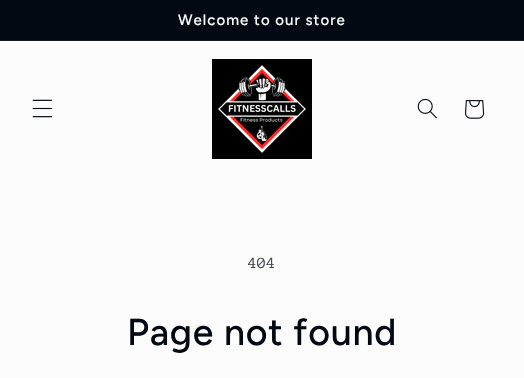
static SkFont makeFont(const char* family, int weight, float size, bool italic = false) {
  SkFontStyle style(weight, SkFontStyle::kNormal_Width,
    italic ? SkFontStyle::kItalic_Slant : SkFontStyle::kUpright_Slant);
  SkFont result(fontMgr->matchFamilyStyle(family, style), size);
  result.setSubpixel(true);
  return result;
}

static void spacedText(SkCanvas* c, const char* s, float x, float y, const SkFont& font, const SkPaint& ink, float letter, float word) {
  std::vector<SkGlyphID> glyphs(font.countText(s, strlen(s), SkTextEncoding::kUTF8));
  std::vector<float> xs(glyphs.size());
  font.textToGlyphs(s, strlen(s), SkTextEncoding::kUTF8, glyphs);
  font.getXPos(glyphs, xs, x);
  float extra = 0;
  for (size_t i = 0; i < glyphs.size(); i++) {
    xs[i] += extra;
    extra += letter + word * (glyphs[i] == font.unicharToGlyph(' '));
  }
  c->drawTextBlob(SkTextBlob::MakeFromPosHGlyphs(glyphs, xs, y, font), 0, 0, ink);
}

static void box(SkCanvas* c, float l, float t, float r, float b, SkColor color) {
  SkPaint ink(SkColor4f::FromColor(color));
  ink.setAntiAlias(true);
  c->drawRect(SkRect::MakeLTRB(l, t, r, b), ink);
}

static void picture(SkCanvas* c, const char* path, float l, float t, float r, float b) {
  auto image = SkImages::DeferredFromEncodedData(SkData::MakeFromFileName(path));
  c->drawImageRect(image, SkRect::MakeLTRB(l, t, r, b), SkSamplingOptions());
}

void draw(SkCanvas* c) {
  SkPaint paint;
  paint.setAntiAlias(true);
  c->clear(0xfffcfcfc);
  box(c, 0, 0, 524, 40, 0xff020912);
  box(c, 0, 40, 524, 41, 0xff161c25);
  SkFont face1 = makeFont("Figtree", 500, 15);
  paint.setColor(0xfffcfcfc);
  spacedText(c, "Welcome to our store", 178, 25, face1, paint, 1.05f, 0);
  picture(c, "img_01.png", 32, 99, 52, 118);
  picture(c, "img_02.png", 212, 59, 312, 159);
  picture(c, "img_03.png", 417, 98, 437, 119);
  picture(c, "img_04.png", 465, 100, 485, 119);
  SkFont face2 = makeFont("Anonymous Pro", 400, 16);
  paint.setColor(0xff41464d);
  spacedText(c, "404", 248, 268, face2, paint, 0.5f, 0);
  SkFont face3 = makeFont("Figtree", 500, 37.5f);
  paint.setColor(0xff020912);
  spacedText(c, "Page not found", 127, 345, face3, paint, 0.75f, 0);
}
